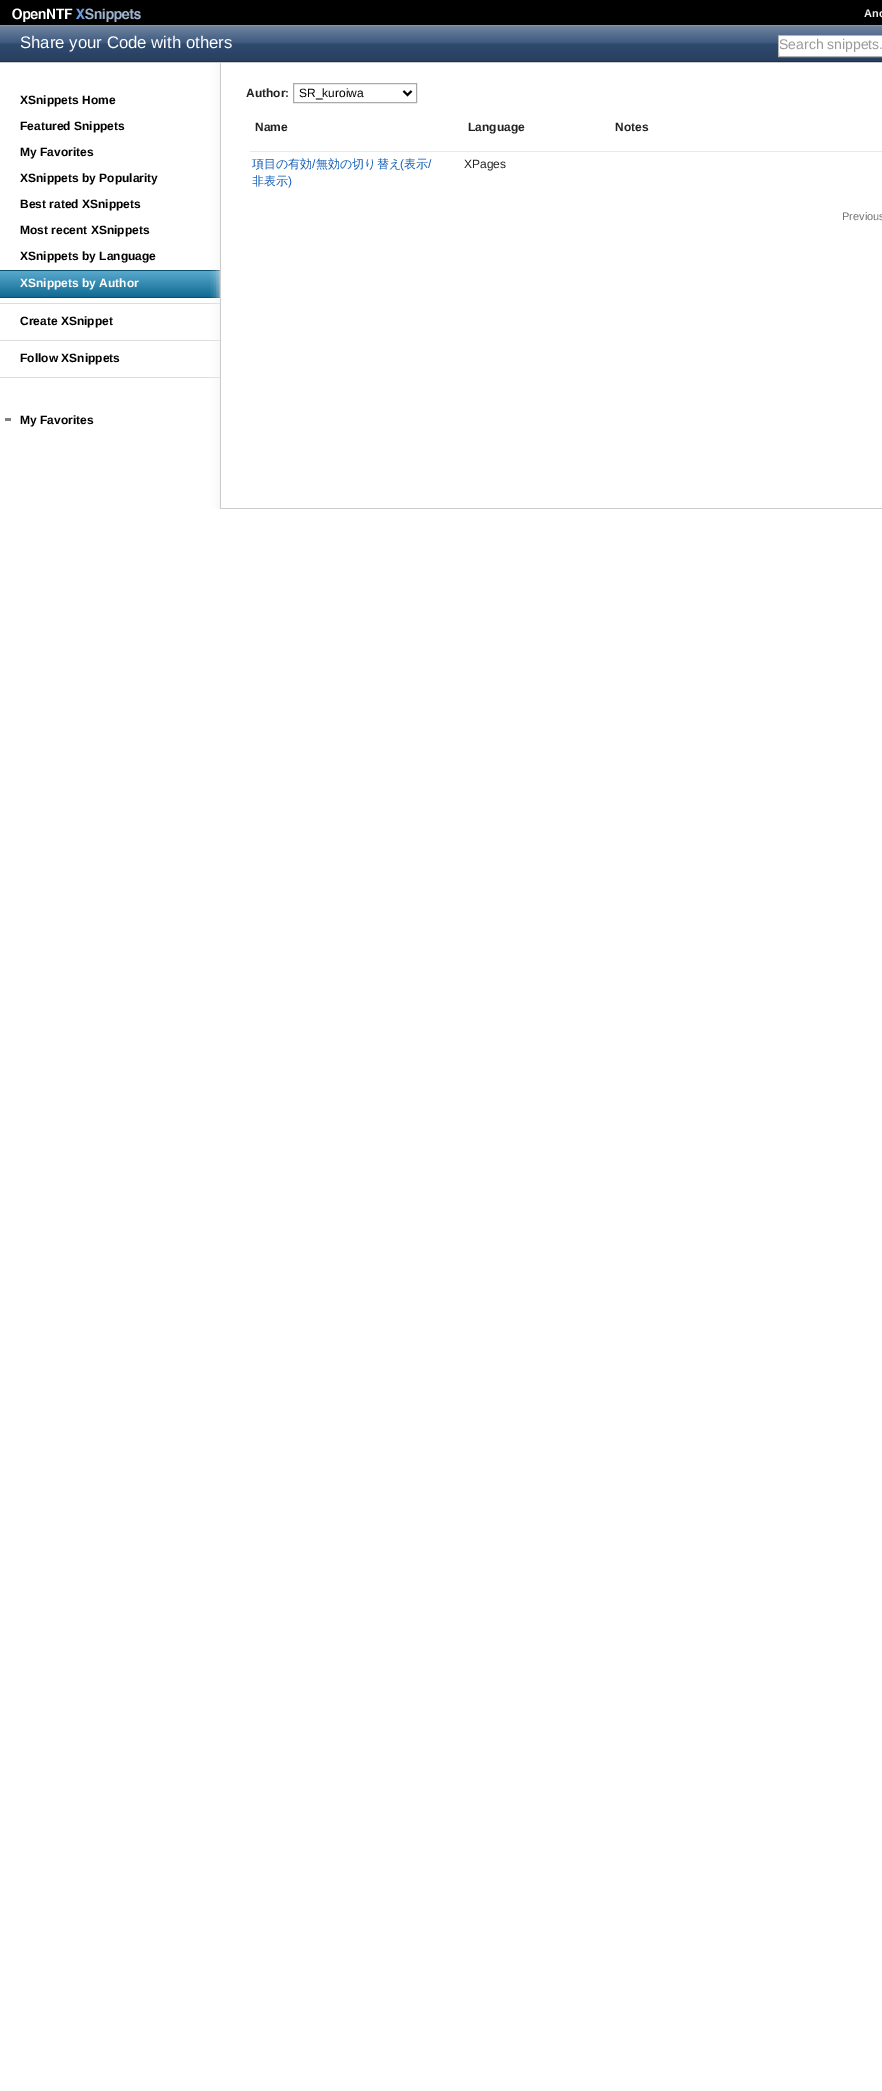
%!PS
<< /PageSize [882 2091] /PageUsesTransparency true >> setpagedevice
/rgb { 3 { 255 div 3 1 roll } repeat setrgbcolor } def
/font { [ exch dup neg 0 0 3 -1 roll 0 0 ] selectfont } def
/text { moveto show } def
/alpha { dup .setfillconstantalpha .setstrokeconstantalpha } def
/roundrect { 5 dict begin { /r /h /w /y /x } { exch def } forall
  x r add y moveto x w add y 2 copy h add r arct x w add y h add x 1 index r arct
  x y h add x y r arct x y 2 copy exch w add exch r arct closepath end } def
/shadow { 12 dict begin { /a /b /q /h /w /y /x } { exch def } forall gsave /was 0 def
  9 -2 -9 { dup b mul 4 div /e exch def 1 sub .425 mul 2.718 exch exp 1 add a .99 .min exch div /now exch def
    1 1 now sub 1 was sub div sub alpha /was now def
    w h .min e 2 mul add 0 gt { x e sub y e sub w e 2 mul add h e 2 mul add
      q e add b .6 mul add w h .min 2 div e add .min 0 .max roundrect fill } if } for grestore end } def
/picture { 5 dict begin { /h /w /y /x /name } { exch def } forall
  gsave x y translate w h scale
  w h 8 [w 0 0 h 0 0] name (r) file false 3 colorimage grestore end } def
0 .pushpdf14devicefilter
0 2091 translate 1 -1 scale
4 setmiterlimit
255 255 255 rgb
0 0 882 2091 rectfill
0 0 0 rgb
0 0 882 25 rectfill
(img_01.rgb) 12 8 129 14 picture
204 204 204 rgb
0 62 882 1 rectfill
gsave 0 271 moveto 220 0 rlineto 0 26 rlineto -220 0 rlineto closepath clip newpath
<< /ShadingType 2 /ColorSpace /DeviceRGB /Coords [110 271 110 297] /Extend [true true] /Function << /FunctionType 2 /Domain [0 1] /C0 [0.353 0.663 0.804] /C1 [0.059 0.416 0.576] /N 1 >> >> shfill grestore
11 79 110 rgb
0 270 220 1 rectfill
0 297 220 1 rectfill
221 221 221 rgb
0 303 220 1 rectfill
0 340 220 1 rectfill
0 377 220 1 rectfill
gsave
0 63 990 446 rectclip
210 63 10 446 rectclip
238 238 238 rgb
220 65 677 446 0 5 1 shadow
grestore
gsave 0 25 moveto 882 0 rlineto 0 36 rlineto -882 0 rlineto closepath clip newpath
<< /ShadingType 2 /ColorSpace /DeviceRGB /Coords [0 25 0 62] /Extend [true true] /Function << /FunctionType 3 /Domain [0 1] /Functions [<< /FunctionType 2 /Domain [0 1] /C0 [0.518 0.584 0.678] /C1 [0.518 0.584 0.678] /N 1 >> << /FunctionType 2 /Domain [0 1] /C0 [0.435 0.518 0.624] /C1 [0.235 0.345 0.49] /N 1 >> << /FunctionType 2 /Domain [0 1] /C0 [0.188 0.294 0.439] /C1 [0.157 0.247 0.369] /N 1 >>] /Bounds [0.03 0.5] /Encode [0 1 0 1 0 1] >> >> shfill grestore
30 47 71 rgb
0 61 882 1 rectfill
255 255 255 rgb
779 52 103 4 rectfill
179 179 179 rgb
778.5 35.5 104 21 rectstroke
255 255 255 rgb
779 36 103 16 rectfill
128 128 128 rgb
5 418 6 3 rectfill
204 204 204 rgb
220 508 662 1 rectfill
220 63 1 446 rectfill
170 170 170 rgb
293.5 83.5 123 19 rectstroke
0 0 0 rgb
2 setlinewidth
403.5 91 moveto 4 4 rlineto 4 -4 rlineto stroke
232 232 233 rgb
250 151 632 1 rectfill
/LiberationSans-Bold 11 font
238 238 238 rgb
(Ano) 864 17 text
/LiberationSans-Regular 16.75 font
255 255 255 rgb
(Share your Code with others) 20 48 text
/LiberationSans-Regular 14 font
153 153 153 rgb
(Search snippets.) 779 49 text
/LiberationSans-Bold 12 font
0 0 0 rgb
(XSnippets Home) 20 104 text
(Featured Snippets) 20 130 text
(My Favorites) 20 156 text
(XSnippets by Popularity) 20 182 text
(Best rated XSnippets) 20 208 text
(Most recent XSnippets) 20 234 text
(XSnippets by Language) 20 260 text
255 255 255 rgb
(XSnippets by Author) 20 287 text
0 0 0 rgb
(Create XSnippet) 20 325 text
(Follow XSnippets) 20 362 text
(My Favorites) 20 424 text
34 34 34 rgb
(Author:) 246 97 text
/LiberationSans-Regular 12 font
0 0 0 rgb
(SR_kuroiwa) 299 97 text
/LiberationSans-Bold 12 font
34 34 34 rgb
(Name) 255 131 text
(Language) 468 131 text
(Notes) 615 131 text
/WenQuanYiZenHei-Medium 12 font
16 92 182 rgb
(項目の有効) 252 168 text
/LiberationSans-Regular 12 font
(/) 312 168 text
/WenQuanYiZenHei-Medium 12 font
(無効の切り替え) 316 168 text
/LiberationSans-Regular 12 font
(\() 400 168 text
/WenQuanYiZenHei-Medium 12 font
(表示) 404 168 text
/LiberationSans-Regular 12 font
(/) 428 168 text
/WenQuanYiZenHei-Medium 12 font
(非表示) 252 185 text
/LiberationSans-Regular 12 font
(\)) 288 185 text
34 34 34 rgb
(XPages) 464 168 text
/LiberationSans-Regular 11 font
112 112 112 rgb
(Previous) 842 220 text
.poppdf14devicefilter showpage
